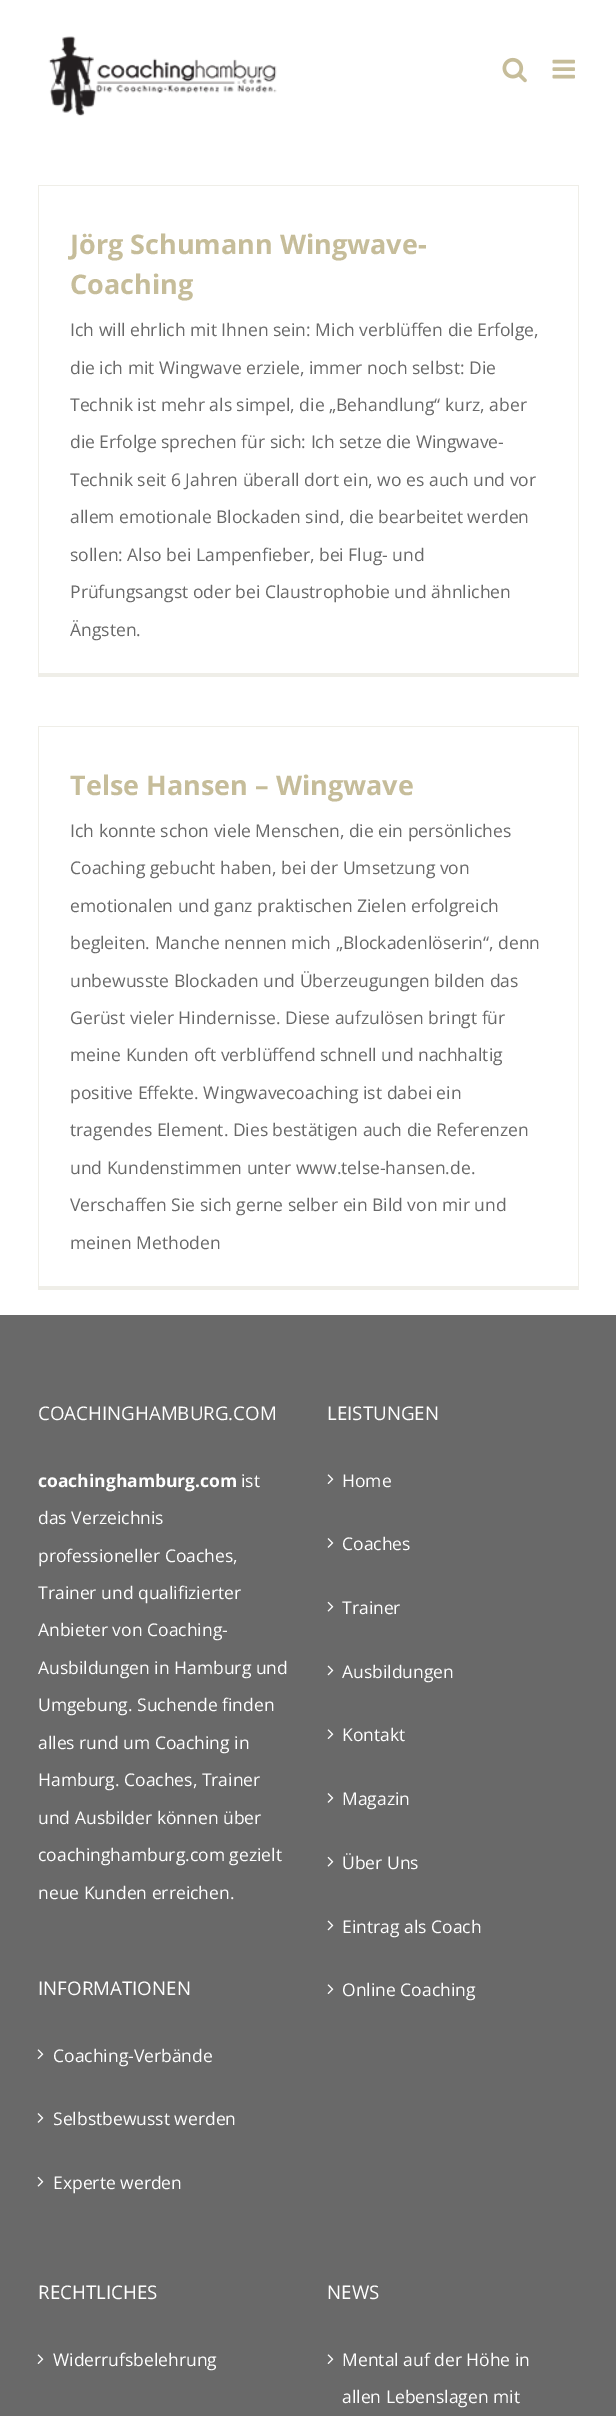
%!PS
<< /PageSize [616 2416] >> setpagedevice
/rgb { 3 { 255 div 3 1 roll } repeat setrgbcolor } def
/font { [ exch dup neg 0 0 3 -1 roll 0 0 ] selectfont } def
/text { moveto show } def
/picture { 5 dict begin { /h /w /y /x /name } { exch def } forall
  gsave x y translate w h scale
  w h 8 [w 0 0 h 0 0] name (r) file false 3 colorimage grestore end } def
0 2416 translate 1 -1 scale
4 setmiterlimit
255 255 255 rgb
0 0 616 2416 rectfill
(img_01.rgb) 48 36 229 80 picture
(img_02.rgb) 502 57 25 26 picture
(img_03.rgb) 552 59 23 20 picture
239 238 232 rgb
38 185 541 1 rectfill
578 185 1 491 rectfill
38 673 541 4 rectfill
38 185 1 491 rectfill
38 726 541 1 rectfill
578 726 1 564 rectfill
38 1286 541 4 rectfill
38 726 1 564 rectfill
105 105 105 rgb
0 1315 616 1101 rectfill
(img_04.rgb) 37 2049 7 10 picture
(img_05.rgb) 37 2113 7 10 picture
(img_06.rgb) 37 2176 7 11 picture
(img_04.rgb) 327 1474 7 10 picture
(img_05.rgb) 327 1538 7 10 picture
(img_06.rgb) 327 1601 7 11 picture
(img_07.rgb) 327 1665 7 11 picture
(img_04.rgb) 327 1729 7 10 picture
(img_05.rgb) 327 1793 7 10 picture
(img_06.rgb) 327 1856 7 11 picture
(img_07.rgb) 327 1920 7 11 picture
(img_04.rgb) 327 1984 7 10 picture
(img_04.rgb) 37 2354 7 10 picture
(img_04.rgb) 327 2354 7 10 picture
/OpenSans-Bold 27 font
198 189 154 rgb
(Jörg Schumann Wingwave-) 70 254 text
(Coaching) 70 294 text
/OpenSans-Regular 17.5 font
105 105 105 rgb
(Ich will ehrlich mit Ihnen sein: Mich verblüffen die Erfolge,) 70 336 text
(die ich mit Wingwave erziele, immer noch selbst: Die) 70 374 text
(Technik ist mehr als simpel, die „Behandlung“ kurz, aber) 70 411 text
(die Erfolge sprechen für sich: Ich setze die Wingwave-) 70 448 text
(Technik seit 6 Jahren überall dort ein, wo es auch und vor) 70 486 text
(allem emotionale Blockaden sind, die bearbeitet werden) 70 523 text
(sollen: Also bei Lampenfieber, bei Flug- und) 70 561 text
(Prüfungsangst oder bei Claustrophobie und ähnlichen) 70 598 text
(Ängsten.) 70 636 text
/OpenSans-Bold 27 font
198 189 154 rgb
(Telse Hansen – Wingwave) 70 795 text
/OpenSans-Regular 17.5 font
105 105 105 rgb
(Ich konnte schon viele Menschen, die ein persönliches) 70 837 text
(Coaching gebucht haben, bei der Umsetzung von) 70 874 text
(emotionalen und ganz praktischen Zielen erfolgreich) 70 912 text
(begleiten. Manche nennen mich „Blockadenlöserin“, denn) 70 949 text
(unbewusste Blockaden und Überzeugungen bilden das) 70 987 text
(Gerüst vieler Hindernisse. Diese aufzulösen bringt für) 70 1024 text
(meine Kunden oft verblüffend schnell und nachhaltig) 70 1061 text
(positive Effekte. Wingwavecoaching ist dabei ein) 70 1099 text
(tragendes Element. Dies bestätigen auch die Referenzen) 70 1136 text
(und Kundenstimmen unter www.telse-hansen.de.) 70 1174 text
(Verschaffen Sie sich gerne selber ein Bild von mir und) 70 1211 text
(meinen Methoden) 70 1249 text
/OpenSans-Regular 18.75 font
255 255 255 rgb
(COACHINGHAMBURG.COM) 38 1420 text
/OpenSans-Bold 17.5 font
(coachinghamburg.com) 38 1487 text
/OpenSans-Regular 17.5 font
(ist) 241 1487 text
(das Verzeichnis) 38 1524 text
(professioneller Coaches,) 38 1562 text
(Trainer und qualifizierter) 38 1599 text
(Anbieter von Coaching-) 38 1636 text
(Ausbildungen in Hamburg und) 38 1674 text
(Umgebung. Suchende finden) 38 1711 text
(alles rund um Coaching in) 38 1749 text
(Hamburg. Coaches, Trainer) 38 1786 text
(und Ausbilder können über) 38 1824 text
(coachinghamburg.com gezielt) 38 1861 text
(neue Kunden erreichen.) 38 1899 text
/OpenSans-Regular 18.75 font
(INFORMATIONEN) 38 1995 text
/OpenSans-Regular 17.5 font
(Coaching-Verbände) 53 2062 text
(Selbstbewusst werden) 53 2125 text
(Experte werden) 53 2189 text
/OpenSans-Regular 18.75 font
(LEISTUNGEN) 327 1420 text
/OpenSans-Regular 17.5 font
(Home) 342 1487 text
(Coaches) 342 1550 text
(Trainer) 342 1614 text
(Ausbildungen) 342 1678 text
(Kontakt) 342 1741 text
(Magazin) 342 1805 text
(Über Uns) 342 1869 text
(Eintrag als Coach) 342 1933 text
(Online Coaching) 342 1996 text
/OpenSans-Regular 18.75 font
(RECHTLICHES) 38 2299 text
/OpenSans-Regular 17.5 font
(Widerrufsbelehrung) 53 2366 text
/OpenSans-Regular 18.75 font
(NEWS) 327 2299 text
/OpenSans-Regular 17.5 font
(Mental auf der Höhe in) 342 2366 text
(allen Lebenslagen mit) 342 2403 text
showpage
